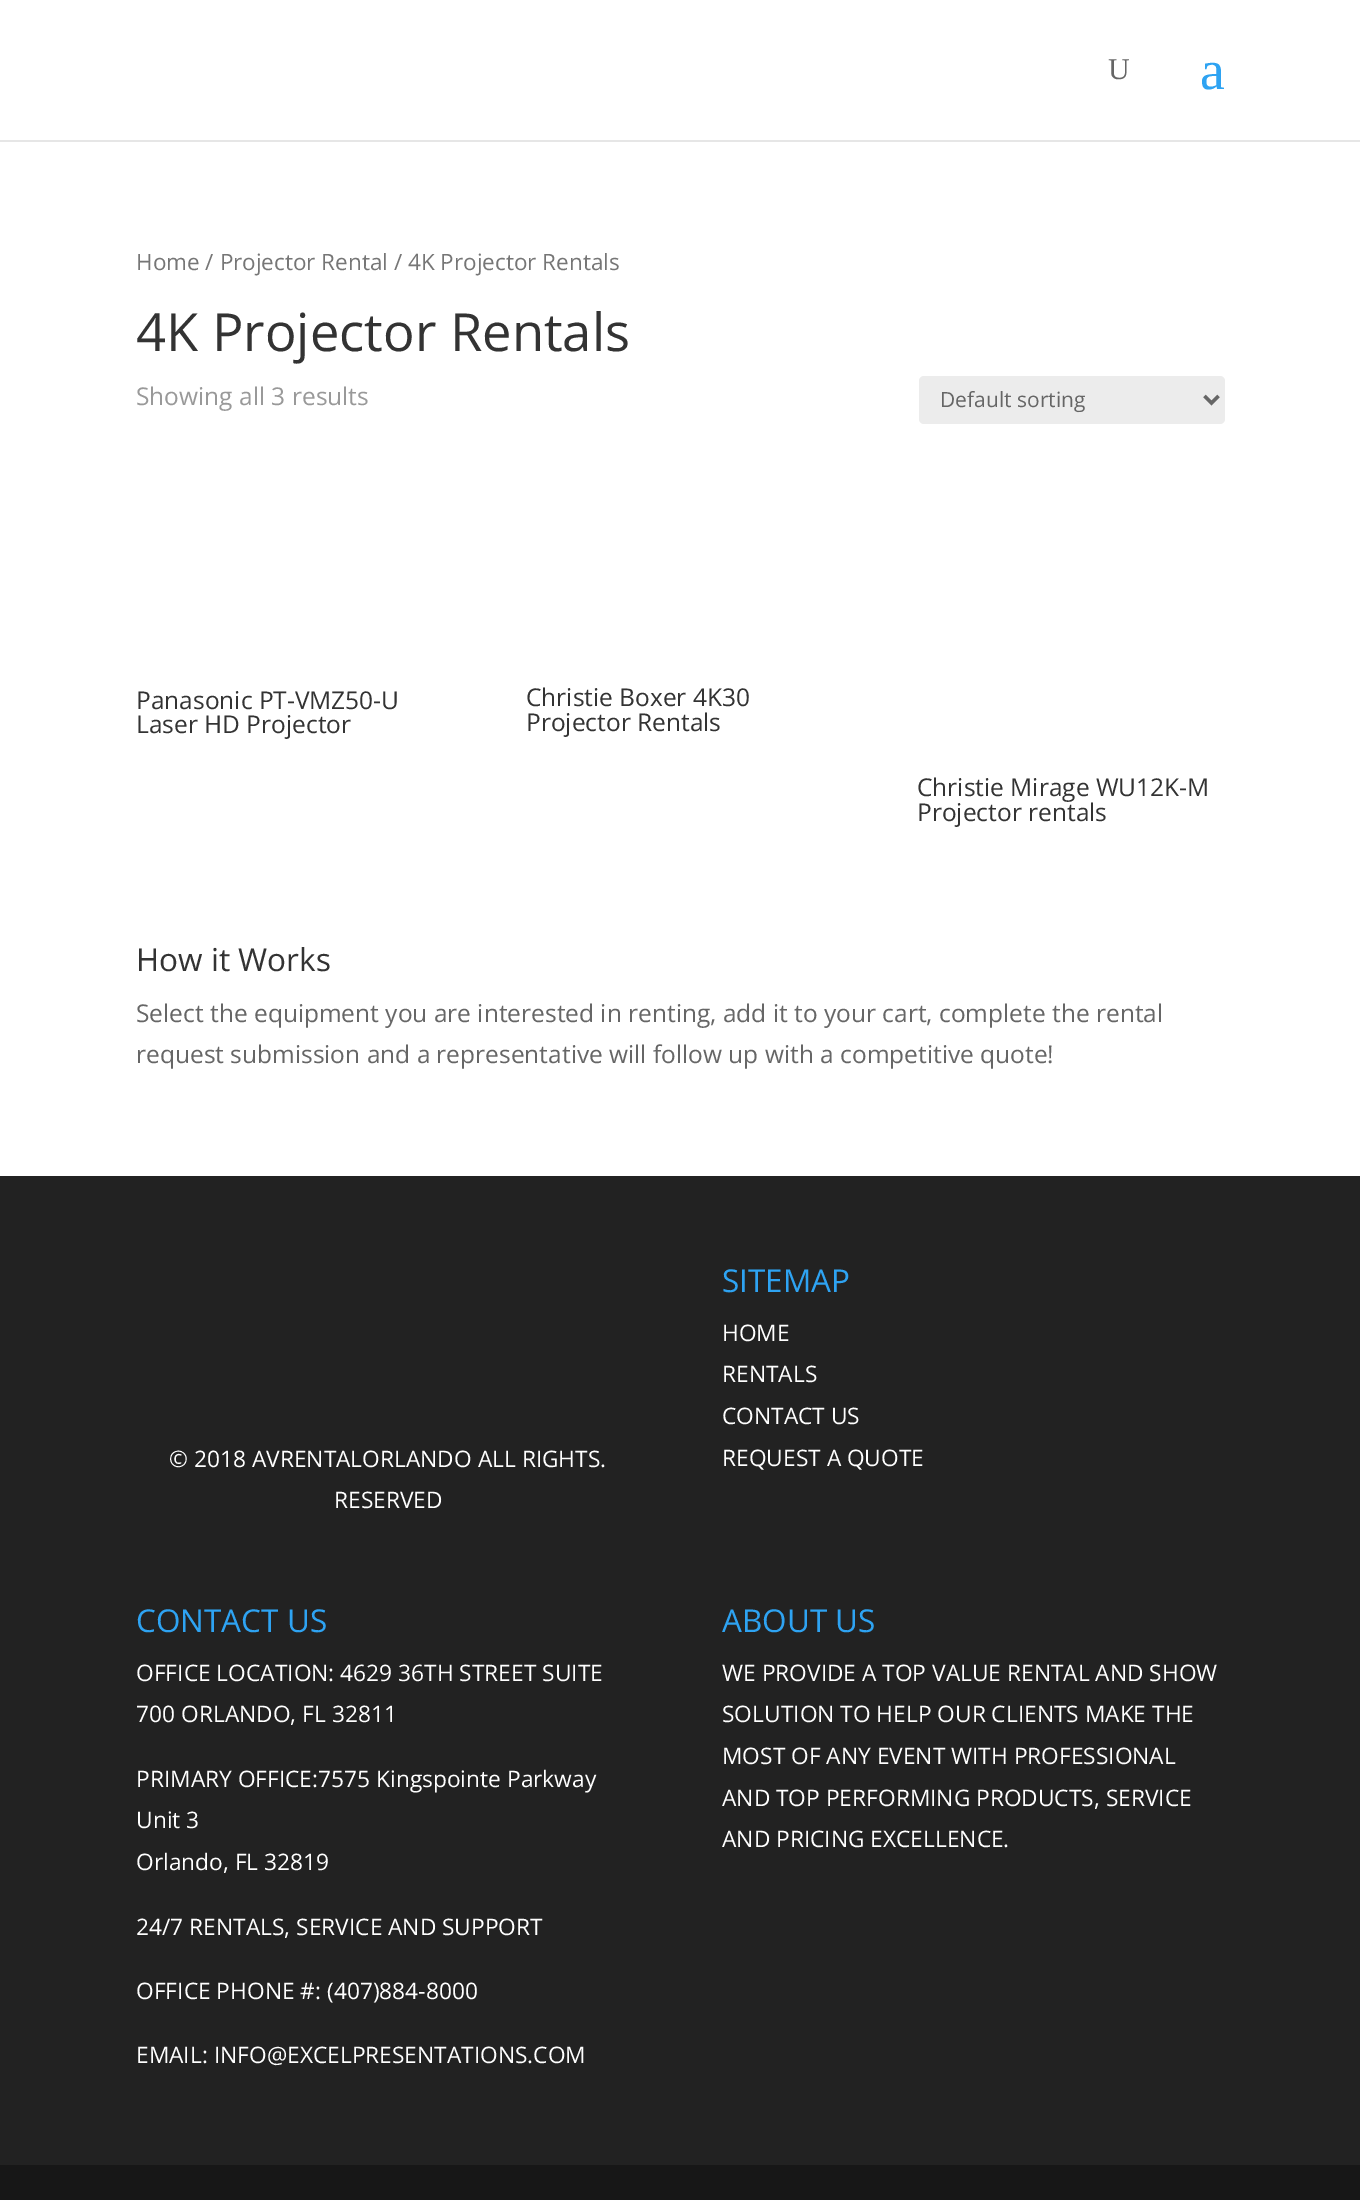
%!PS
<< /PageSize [1360 2201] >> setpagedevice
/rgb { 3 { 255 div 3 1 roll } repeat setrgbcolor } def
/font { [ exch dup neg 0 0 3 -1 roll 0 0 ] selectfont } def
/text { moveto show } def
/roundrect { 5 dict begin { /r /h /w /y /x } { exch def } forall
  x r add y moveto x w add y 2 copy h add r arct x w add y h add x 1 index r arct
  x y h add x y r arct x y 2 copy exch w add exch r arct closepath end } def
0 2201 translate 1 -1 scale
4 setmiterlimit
255 255 255 rgb
0 0 1360 2201 rectfill
230 230 230 rgb
0 140 moveto 0 2 rlineto 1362 0 rlineto 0 -140 rlineto 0 138 rlineto closepath fill
236 236 236 rgb
919 376 306 48 5 roundrect fill
102 102 102 rgb
3.5 setlinewidth
1204.5 396 moveto 7 7 rlineto 7 -7 rlineto stroke
34 34 34 rgb
0 1176 1360 989 rectfill
23 23 23 rgb
0 2165 1360 35 rectfill
/LiberationSerif-Regular 30 font
102 102 102 rgb
(U) 1108 79 text
/LiberationSerif-Regular 56 font
46 163 242 rgb
(a) 1200 89 text
/OpenSans-Regular 22.5 font
118 118 118 rgb
(Home / Projector Rental / 4K Projector Rentals) 136 270 text
/OpenSans-Regular 52.5 font
51 51 51 rgb
(4K Projector Rentals) 136 351 text
/OpenSans-Regular 24.5 font
153 153 153 rgb
(Showing all 3 results) 136 405 text
/OpenSans-Regular 21 font
102 102 102 rgb
(Default sorting) 940 407 text
/OpenSans-Regular 24.5 font
51 51 51 rgb
(Panasonic PT-VMZ50-U) 136 709 text
(Laser HD Projector) 136 733 text
(Christie Boxer 4K30) 526 706 text
(Projector Rentals) 526 731 text
(Christie Mirage WU12K-M) 917 796 text
(Projector rentals) 917 821 text
/OpenSans-Regular 31.5 font
(How it Works) 136 971 text
/OpenSans-Regular 24.5 font
102 102 102 rgb
(Select the equipment you are interested in renting, add it to your cart, complete the rental) 136 1022 text
(request submission and a representative will follow up with a competitive quote!) 136 1063 text
/OpenSans-Regular 31.5 font
46 163 242 rgb
(SITEMAP) 722 1292 text
/OpenSans-Regular 22.75 font
255 255 255 rgb
(HOME) 722 1341 text
(RENTALS) 722 1382 text
(CONTACT US) 722 1424 text
(REQUEST A QUOTE) 722 1466 text
(© 2018 AVRENTALORLANDO ALL RIGHTS.) 169 1467 text
(RESERVED) 334 1508 text
/OpenSans-Regular 31.5 font
46 163 242 rgb
(CONTACT US) 136 1632 text
/OpenSans-Regular 22.75 font
255 255 255 rgb
(OFFICE LOCATION: 4629 36TH STREET SUITE) 136 1681 text
(700 ORLANDO, FL 32811) 136 1722 text
(PRIMARY OFFICE:7575 Kingspointe Parkway) 136 1787 text
(Unit 3) 136 1828 text
(Orlando, FL 32819) 136 1870 text
(24/7 RENTALS, SERVICE AND SUPPORT) 136 1935 text
(OFFICE PHONE #: \(407\)884-8000) 136 1999 text
(EMAIL: INFO@EXCELPRESENTATIONS.COM) 136 2063 text
/OpenSans-Regular 31.5 font
46 163 242 rgb
(ABOUT US) 722 1632 text
/OpenSans-Regular 22.75 font
255 255 255 rgb
(WE PROVIDE A TOP VALUE RENTAL AND SHOW) 722 1681 text
(SOLUTION TO HELP OUR CLIENTS MAKE THE) 722 1722 text
(MOST OF ANY EVENT WITH PROFESSIONAL) 722 1764 text
(AND TOP PERFORMING PRODUCTS, SERVICE) 722 1806 text
(AND PRICING EXCELLENCE.) 722 1847 text
showpage
